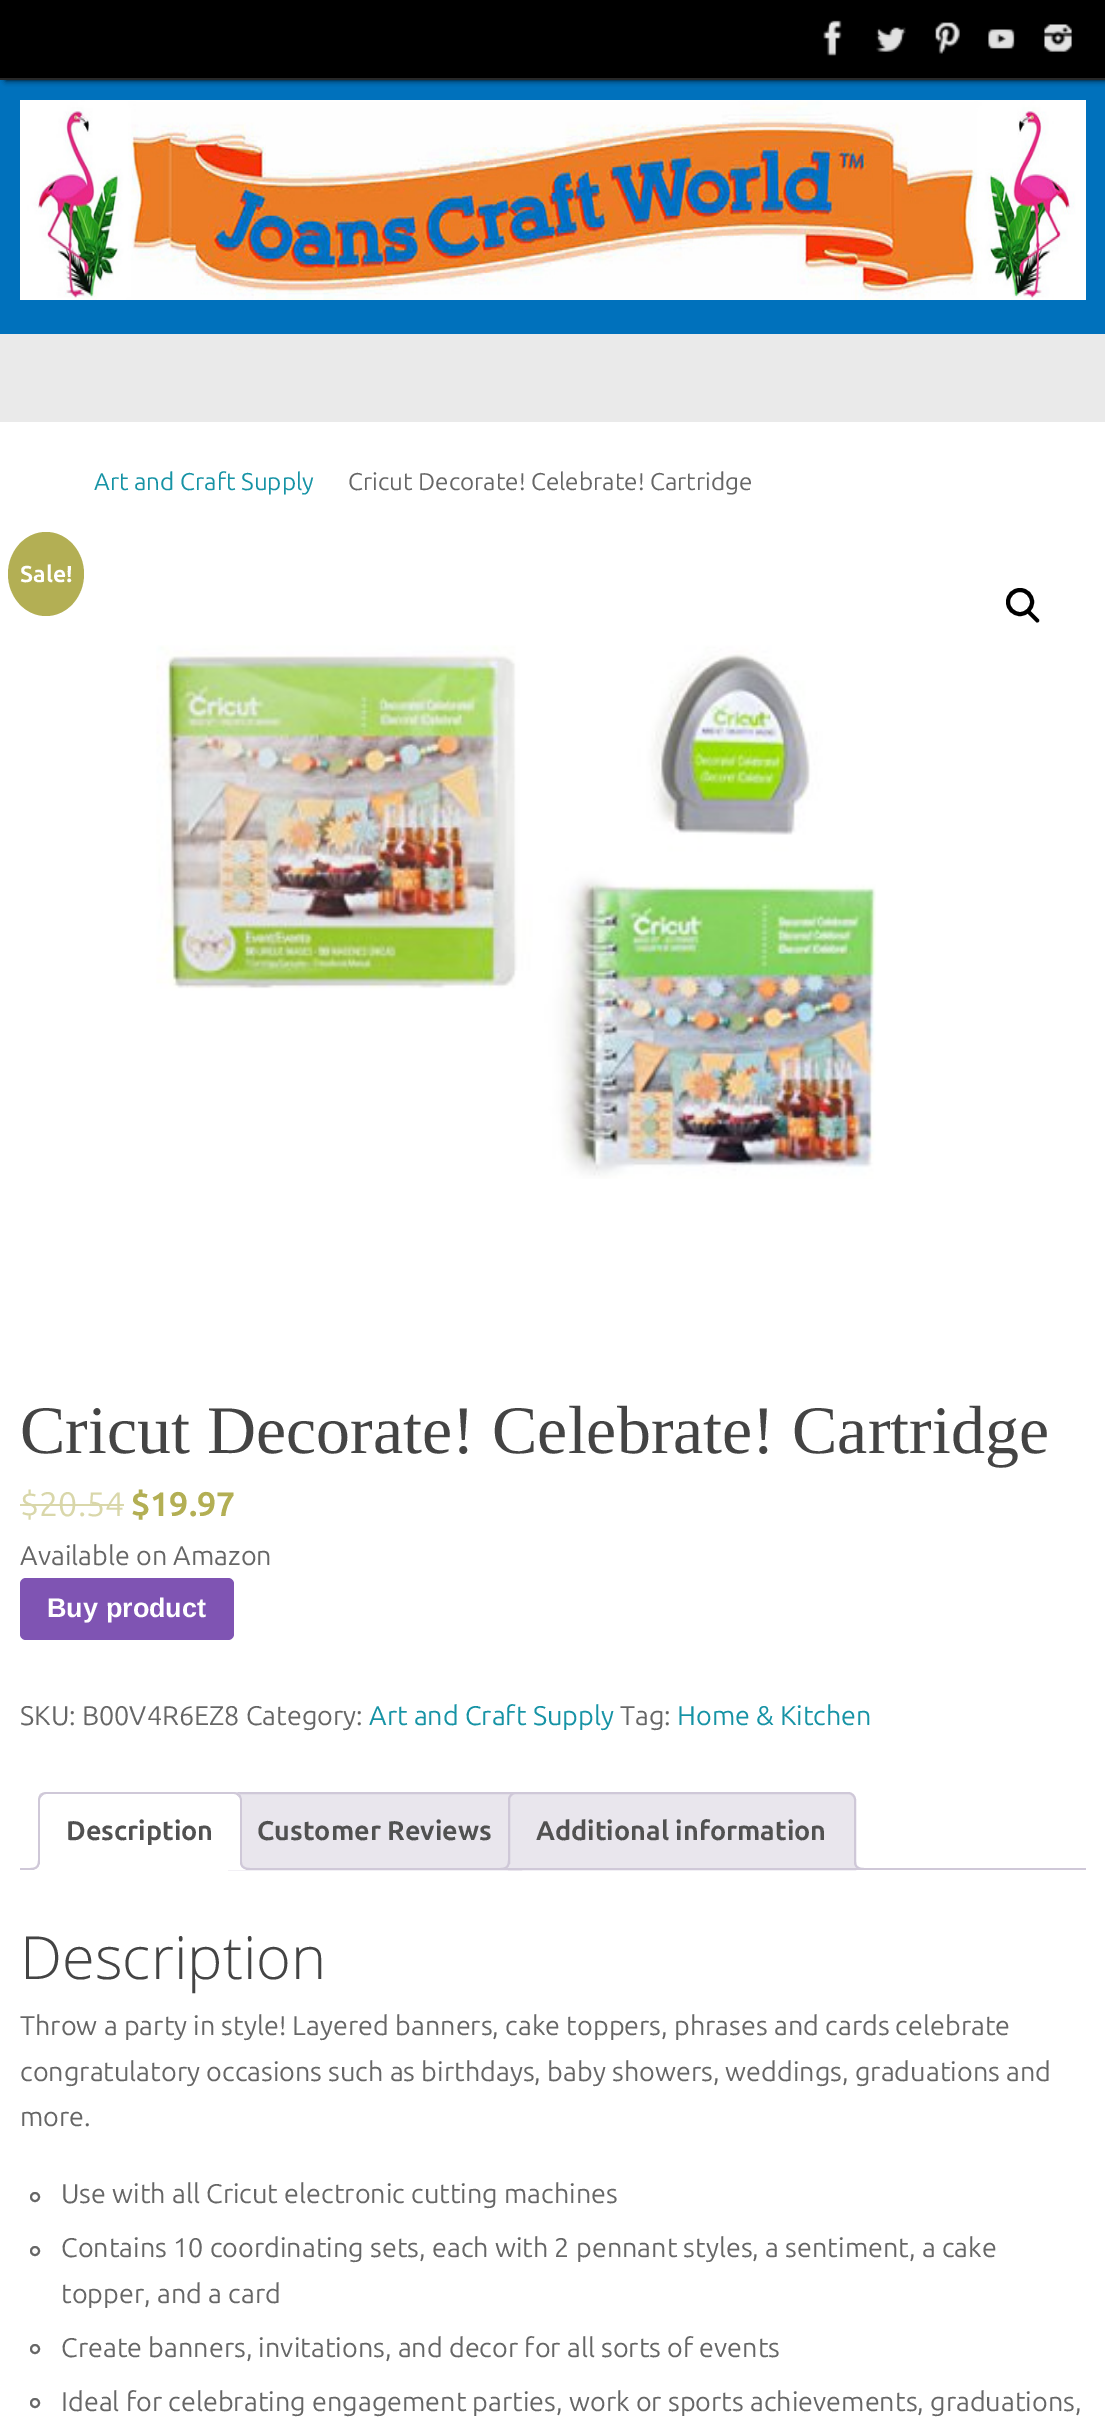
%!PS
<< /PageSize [1105 2434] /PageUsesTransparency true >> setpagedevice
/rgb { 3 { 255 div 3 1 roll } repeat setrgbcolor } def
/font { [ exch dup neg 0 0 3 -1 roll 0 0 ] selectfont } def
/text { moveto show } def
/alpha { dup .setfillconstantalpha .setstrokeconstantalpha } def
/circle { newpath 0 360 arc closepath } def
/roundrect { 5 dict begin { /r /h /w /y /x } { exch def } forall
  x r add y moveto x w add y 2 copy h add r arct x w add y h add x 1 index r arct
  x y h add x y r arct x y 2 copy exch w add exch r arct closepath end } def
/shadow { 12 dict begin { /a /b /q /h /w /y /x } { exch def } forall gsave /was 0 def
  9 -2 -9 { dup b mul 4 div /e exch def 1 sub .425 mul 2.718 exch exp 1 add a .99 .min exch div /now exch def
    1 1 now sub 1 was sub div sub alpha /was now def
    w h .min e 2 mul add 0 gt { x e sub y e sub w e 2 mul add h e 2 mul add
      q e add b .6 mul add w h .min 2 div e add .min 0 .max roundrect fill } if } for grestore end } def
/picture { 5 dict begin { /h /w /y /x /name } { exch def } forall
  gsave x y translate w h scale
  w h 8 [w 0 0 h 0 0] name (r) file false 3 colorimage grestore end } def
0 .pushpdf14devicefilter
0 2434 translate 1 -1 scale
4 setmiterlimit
0 113 188 rgb
0 0 1105 2434 rectfill
0 0 0 rgb
6 0 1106 80 0 3 1 shadow
0 0 1105 78 rectfill
40 40 40 rgb
0 78 1105 2 rectfill
(img_01.rgb) 823 20 19 36 picture
(img_02.rgb) 876 27 30 25 picture
(img_03.rgb) 935 22 25 32 picture
(img_04.rgb) 988 29 27 20 picture
(img_05.rgb) 1044 24 28 28 picture
(img_06.rgb) 20 100 1066 200 picture
234 234 234 rgb
0 334 1105 88 rectfill
255 255 255 rgb
0 422 1105 2012 rectfill
179 175 84 rgb
46 532 moveto 21 0 38 19 38 42 rcurveto 0 23 -17 42 -38 42 rcurveto -21 0 -38 -19 -38 -42 rcurveto 0 -23 17 -42 38 -42 rcurveto closepath fill
0 0 0 rgb
4 setlinewidth
1020 602 12 circle stroke
1027.5 610.5 moveto 0.5 -1 2 -1 2.5 0 rcurveto 8.5 8.5 rlineto 1 1 1 2 0 3 rcurveto -0.5 0.5 -2 0.5 -2.5 0 rcurveto -8.5 -8.5 rlineto -1 -1 -1 -2 0 -3 rcurveto closepath fill
(img_07.rgb) 156 645 720 534 picture
217 215 170 rgb
20 1504 104 2 rectfill
127 84 179 rgb
20 1578 214 62 6 roundrect fill
233 230 237 rgb
236 1793 moveto 278 0 rlineto 4 0 7 3 7 7 rcurveto 0 69 rlineto -292 0 rlineto 0 -69 rlineto 0 -4 3 -7 7 -7 rcurveto closepath gsave fill grestore
207 200 216 rgb
2 setlinewidth
stroke
233 230 237 rgb
516 1793 moveto 332 0 rlineto 4 0 7 3 7 7 rcurveto 0 69 rlineto -346 0 rlineto 0 -69 rlineto 0 -4 3 -7 7 -7 rcurveto closepath gsave fill grestore
207 200 216 rgb
stroke
gsave
20 1792 1066 78 rectclip
233 230 237 rgb
504 1869.5 moveto 0 4.5 rlineto 7 0 10 -3 10 -10 rcurveto -4.5 0 rlineto -0.5 3 -2.5 5 -5.5 5.5 rcurveto closepath fill
grestore
500 1860 moveto 10 0 rlineto 0 7 -3 10 -10 10 rcurveto closepath 500 1860 moveto 8 0 rlineto 0 6 -2 8 -8 8 rcurveto closepath eofill
gsave
20 1792 1066 78 rectclip
233 230 237 rgb
850 1864 moveto 0 7 3 10 10 10 rcurveto 0 -4.5 rlineto -3 -0.5 -5 -2.5 -5.5 -5.5 rcurveto closepath fill
grestore
854 1860 moveto 10 0 rlineto 0 10 rlineto -5 0 -10 -2 -10 -8 rcurveto closepath 856 1860 moveto 8 0 rlineto 0 8 rlineto -4 0 -8 -1 -8 -6 rcurveto closepath eofill
20 1868 1066 2 rectfill
255 255 255 rgb
46 1792 moveto 188 0 rlineto 4.5 0 8 3.5 8 8 rcurveto 0 70 rlineto -204 0 rlineto 0 -70 rlineto 0 -4.5 3.5 -8 8 -8 rcurveto closepath fill
207 200 216 rgb
46 1792 moveto -2 0 -4 1 -6 2 rcurveto 2 2 rlineto 1 -1 2 -2 4 -2 rcurveto 188 0 rlineto 2 0 3 1 4 2 rcurveto 2 -2 rlineto -2 -1 -4 -2 -6 -2 rcurveto closepath fill
242 1870 moveto 0 -70 rlineto 0 -2 -1 -4 -2 -6 rcurveto -2 2 rlineto 1 1 2 2 2 4 rcurveto 0 68 rlineto closepath fill
255 255 255 rgb
242 1870 moveto -2 -2 rlineto -200 0 rlineto -2 2 rlineto closepath fill
207 200 216 rgb
38 1870 moveto 2 -2 rlineto 0 -68 rlineto 0 -2 1 -3 2 -4 rcurveto -2 -2 rlineto -1 2 -2 4 -2 6 rcurveto closepath fill
gsave
20 1792 1066 78 rectclip
255 255 255 rgb
34 1869.5 moveto 0 4.5 rlineto 7 0 10 -3 10 -10 rcurveto -4.5 0 rlineto -0.5 3 -2.5 5 -5.5 5.5 rcurveto closepath fill
grestore
30 1860 moveto 10 0 rlineto 0 7 -3 10 -10 10 rcurveto closepath 30 1860 moveto 8 0 rlineto 0 6 -2 8 -8 8 rcurveto closepath eofill
gsave
20 1792 1066 78 rectclip
255 255 255 rgb
236 1864 moveto 0 7 3 10 10 10 rcurveto 0 -4.5 rlineto -3 -0.5 -5 -2.5 -5.5 -5.5 rcurveto closepath fill
grestore
240 1860 moveto 10 0 rlineto 0 10 rlineto -5 0 -10 -2 -10 -8 rcurveto closepath 242 1860 moveto 8 0 rlineto 0 8 rlineto -4 0 -8 -1 -8 -6 rcurveto closepath eofill
102 102 102 rgb
35 2197 4 circle stroke
35 2251 4 circle stroke
35 2349 4 circle stroke
35 2403 4 circle stroke
/Ubuntu-Regular 24.25 font
22 147 165 rgb
(Art and Craft Supply) 94 490 text
102 102 102 rgb
(Cricut Decorate! Celebrate! Cartridge) 348 490 text
/Ubuntu-Bold 23 font
255 255 255 rgb
(Sale!) 20 582 text
/LiberationSerif-Regular 68 font
68 68 68 rgb
(Cricut Decorate! Celebrate! Cartridge) 20 1453 text
/Ubuntu-Regular 34 font
217 215 170 rgb
($20.54) 20 1516 text
/Ubuntu-Bold 34 font
179 175 84 rgb
($19.97) 131 1516 text
/Ubuntu-Regular 27 font
102 102 102 rgb
(Available on Amazon) 20 1565 text
/LiberationSans-Bold 27 font
255 255 255 rgb
(Buy product) 47 1617 text
/Ubuntu-Regular 27 font
102 102 102 rgb
(SKU: B00V4R6EZ8 Category:) 20 1725 text
22 147 165 rgb
(Art and Craft Supply) 369 1725 text
102 102 102 rgb
(Tag:) 620 1725 text
22 147 165 rgb
(Home & Kitchen) 677 1725 text
/Ubuntu-Bold 27 font
81 81 81 rgb
(Description) 66 1840 text
(Customer Reviews) 257 1840 text
(Additional information) 536 1840 text
/OpenSans-Light 59.5 font
68 68 68 rgb
(Description) 20 1979 text
/Ubuntu-Regular 27 font
102 102 102 rgb
(Throw a party in style! Layered banners, cake toppers, phrases and cards celebrate) 20 2035 text
(congratulatory occasions such as birthdays, baby showers, weddings, graduations and) 20 2081 text
(more.) 20 2126 text
(Use with all Cricut electronic cutting machines) 61 2203 text
(Contains 10 coordinating sets, each with 2 pennant styles, a sentiment, a cake) 61 2257 text
(topper, and a card) 61 2303 text
(Create banners, invitations, and decor for all sorts of events) 61 2357 text
(Ideal for celebrating engagement parties, work or sports achievements, graduations,) 61 2411 text
.poppdf14devicefilter showpage
